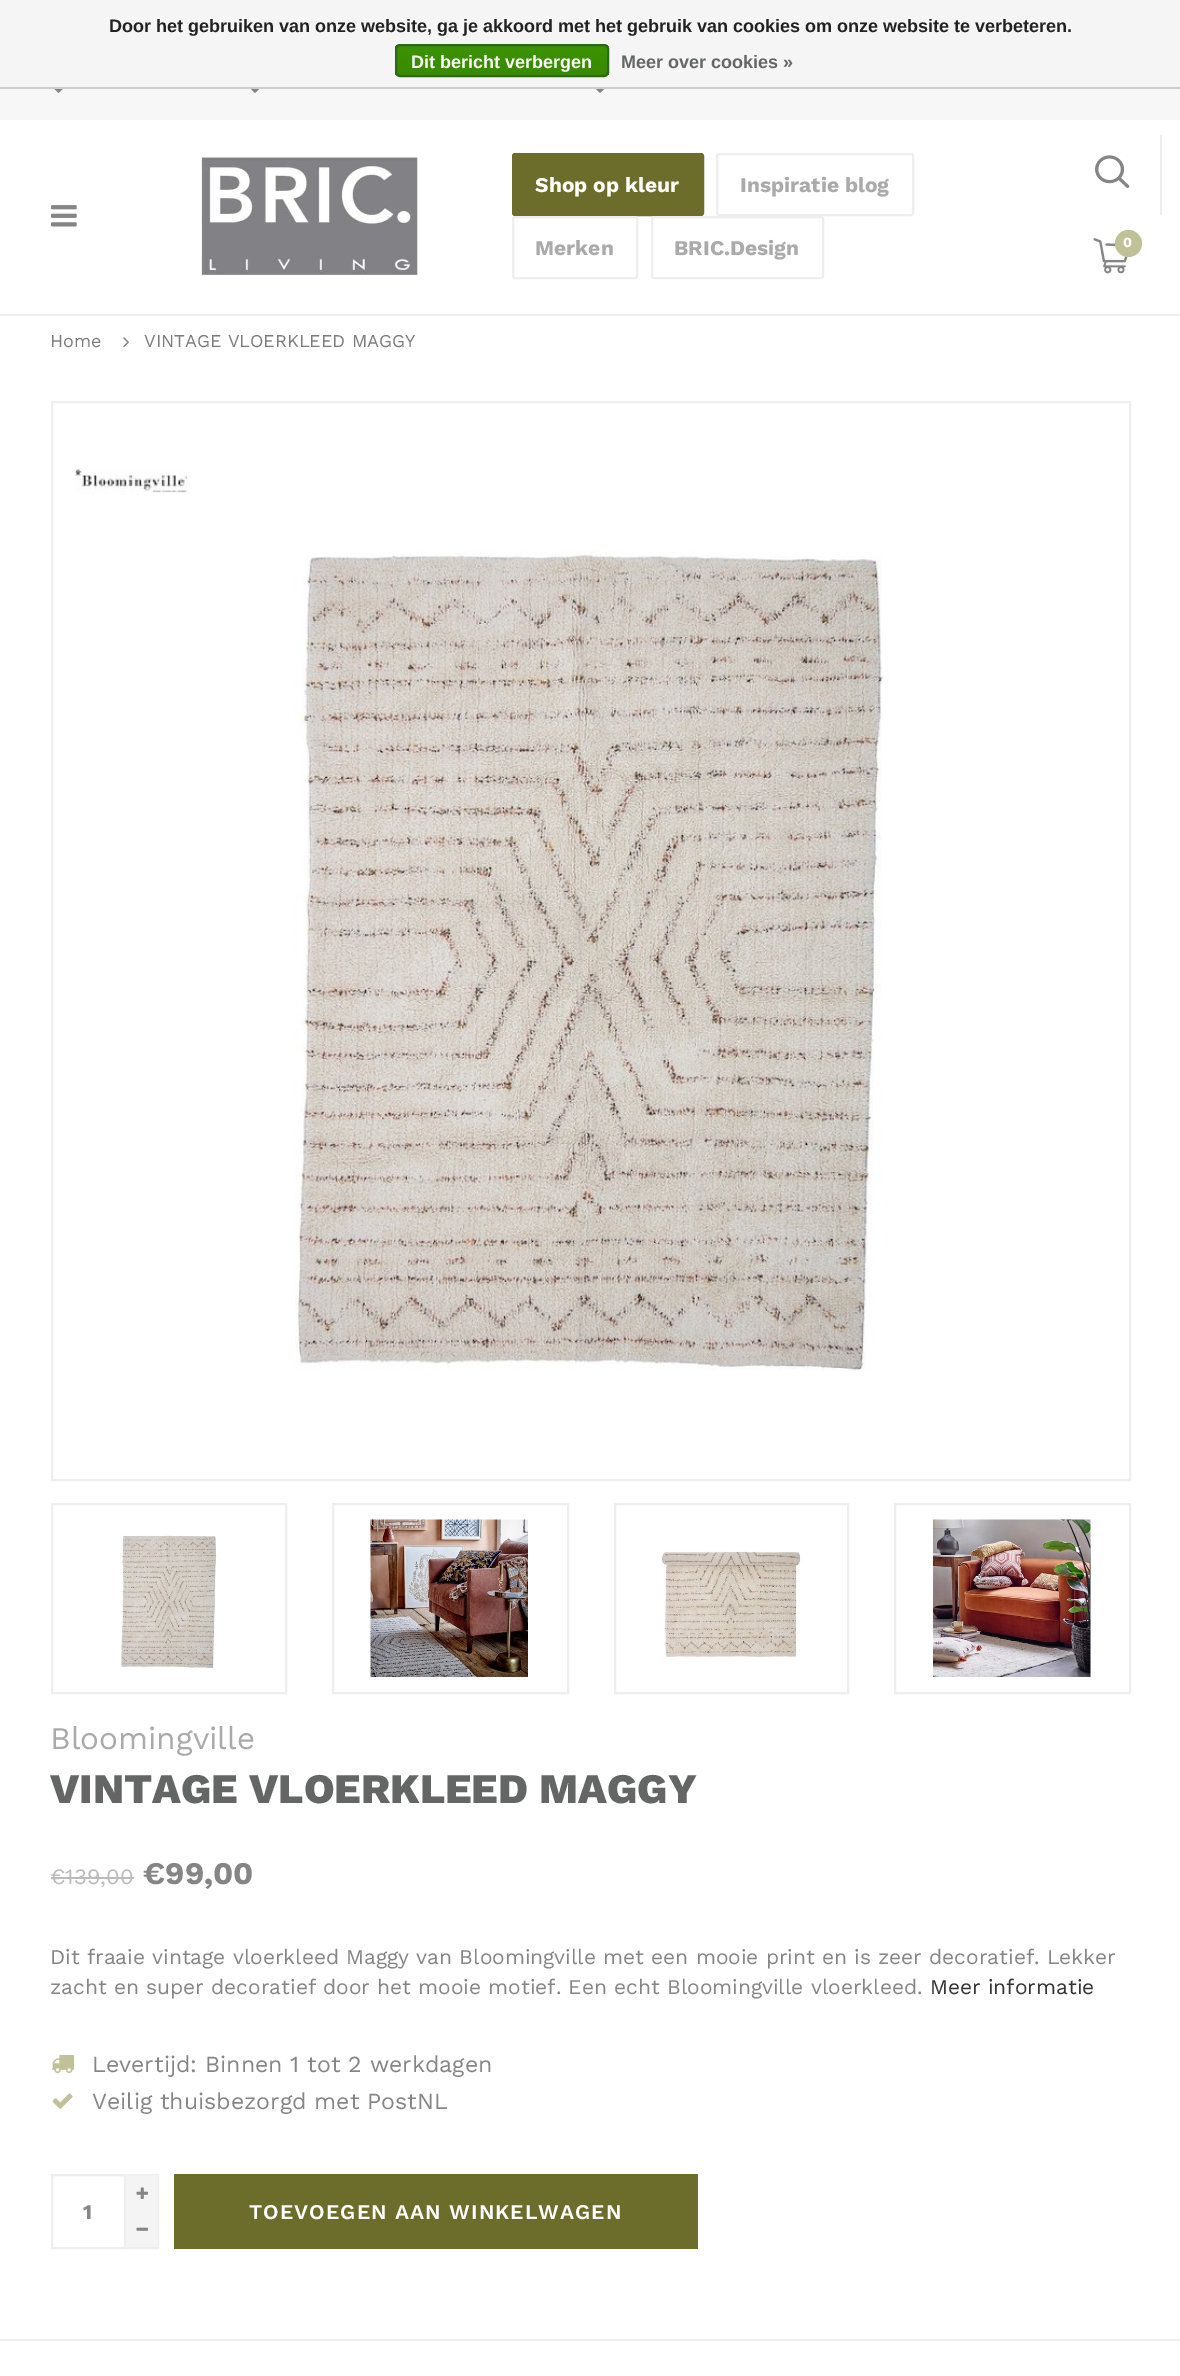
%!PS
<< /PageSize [1180 2376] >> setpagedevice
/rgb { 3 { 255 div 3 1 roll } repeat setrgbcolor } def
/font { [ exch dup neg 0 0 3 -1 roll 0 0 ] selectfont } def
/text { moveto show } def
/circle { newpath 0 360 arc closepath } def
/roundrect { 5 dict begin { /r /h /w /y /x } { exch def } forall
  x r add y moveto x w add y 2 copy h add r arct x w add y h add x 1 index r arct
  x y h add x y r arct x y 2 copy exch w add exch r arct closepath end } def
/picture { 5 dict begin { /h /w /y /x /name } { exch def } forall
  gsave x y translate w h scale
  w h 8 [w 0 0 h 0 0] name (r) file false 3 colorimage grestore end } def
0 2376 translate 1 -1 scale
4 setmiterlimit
255 255 255 rgb
0 0 1180 2376 rectfill
245 245 245 rgb
0 0 1180 87 rectfill
204 204 204 rgb
0 87 1180 2 rectfill
gsave
395 44 214 33 5 roundrect clip newpath
gsave 395 45 moveto 214 0 rlineto 0 30 rlineto -214 0 rlineto closepath clip newpath
<< /ShadingType 2 /ColorSpace /DeviceRGB /Coords [502 45 502 75] /Extend [true true] /Function << /FunctionType 2 /Domain [0 1] /C0 [0.235 0.576 0] /C1 [0.224 0.541 0] /N 1 >> >> shfill grestore
grestore
41 105 29 rgb
2 setlinewidth
396 45 212 31 4 roundrect stroke
247 247 247 rgb
0 89 1180 31 rectfill
(img_01.rgb) 54 89 9 4 picture
(img_02.rgb) 250 89 10 4 picture
(img_02.rgb) 595 89 10 4 picture
238 238 238 rgb
0 314 1180 2 rectfill
(img_03.rgb) 51 205 26 22 picture
(img_04.rgb) 201 156 217 120 picture
109 109 43 rgb
513 154 190 61 2 roundrect gsave fill grestore
stroke
238 238 238 rgb
717 154 196 61 2 roundrect stroke
513 217 124 61 2 roundrect stroke
652 217 171 61 2 roundrect stroke
1160 135 2 80 rectfill
(img_05.rgb) 1095 155 35 33 picture
(img_06.rgb) 1093 238 35 36 picture
193 193 152 rgb
1128.5 243.5 13.5 circle fill
(img_07.rgb) 123 337 6 11 picture
238 238 238 rgb
52 402 1078 1078 rectstroke
(img_08.rgb) 75 469 113 26 picture
(img_09.rgb) 295 551 594 820 picture
52 1504 234 189 rectstroke
(img_10.rgb) 120 1535 97 135 picture
333 1504 235 189 rectstroke
(img_11.rgb) 370 1519 158 158 picture
615 1504 233 189 rectstroke
(img_12.rgb) 661 1550 142 108 picture
895 1504 235 189 rectstroke
(img_13.rgb) 933 1519 158 158 picture
187 187 187 rgb
51 1877 83 2 rectfill
(img_14.rgb) 51 2055 24 19 picture
(img_15.rgb) 52 2093 21 16 picture
238 238 238 rgb
52 2175 73 73 rectstroke
126 2175 32 73 rectstroke
244 244 244 rgb
126 2175 32 72 rectfill
(img_16.rgb) 136 2187 13 12 picture
(img_17.rgb) 136 2227 13 4 picture
109 109 43 rgb
174 2174 524 75 rectfill
238 238 238 rgb
0 2339 1180 2 rectfill
/LiberationSans-Bold 18 font
34 34 34 rgb
(Door het gebruiken van onze website, ga je akkoord met het gebruik van cookies om onze website te verbeteren.) 109 32 text
255 255 255 rgb
(Dit bericht verbergen) 411 68 text
100 101 101 rgb
(Meer over cookies ») 621 68 text
/WorkSans-Bold 21 font
255 255 255 rgb
(Shop op kleur) 535 192 text
170 170 170 rgb
(Inspiratie blog) 740 192 text
(Merken) 535 255 text
(BRIC.Design) 674 255 text
/WorkSans-Bold 14 font
255 255 255 rgb
(0) 1123 247 text
/WorkSans-Regular 18 font
123 123 123 rgb
(Home) 50 347 text
(VINTAGE VLOERKLEED MAGGY) 144 347 text
/WorkSans-Regular 31.5 font
170 170 170 rgb
(Bloomingville) 50 1749 text
/WorkSans-ExtraBold 42 font
100 101 101 rgb
(VINTAGE VLOERKLEED MAGGY) 50 1803 text
/WorkSans-Regular 22 font
187 187 187 rgb
(€139,00) 50 1884 text
/WorkSans-Bold 31.5 font
133 133 133 rgb
(€99,00) 143 1884 text
/WorkSans-Regular 21 font
(Dit fraaie vintage vloerkleed Maggy van Bloomingville met een mooie print en is zeer decoratief. Lekker) 50 1964 text
(zacht en super decoratief door het mooie motief. Een echt Bloomingville vloerkleed.) 50 1994 text
51 51 51 rgb
(Meer informatie) 930 1994 text
/WorkSans-Regular 23.1 font
133 133 133 rgb
(Levertijd: Binnen 1 tot 2 werkdagen) 92 2072 text
(Veilig thuisbezorgd met PostNL) 92 2109 text
/WorkSans-Bold 21 font
(1) 83 2219 text
/WorkSans-SemiBold 21 font
255 255 255 rgb
249 2219 moveto 1.05 0 (TOEVOEGEN AAN WINKELWAGEN) ashow
showpage
